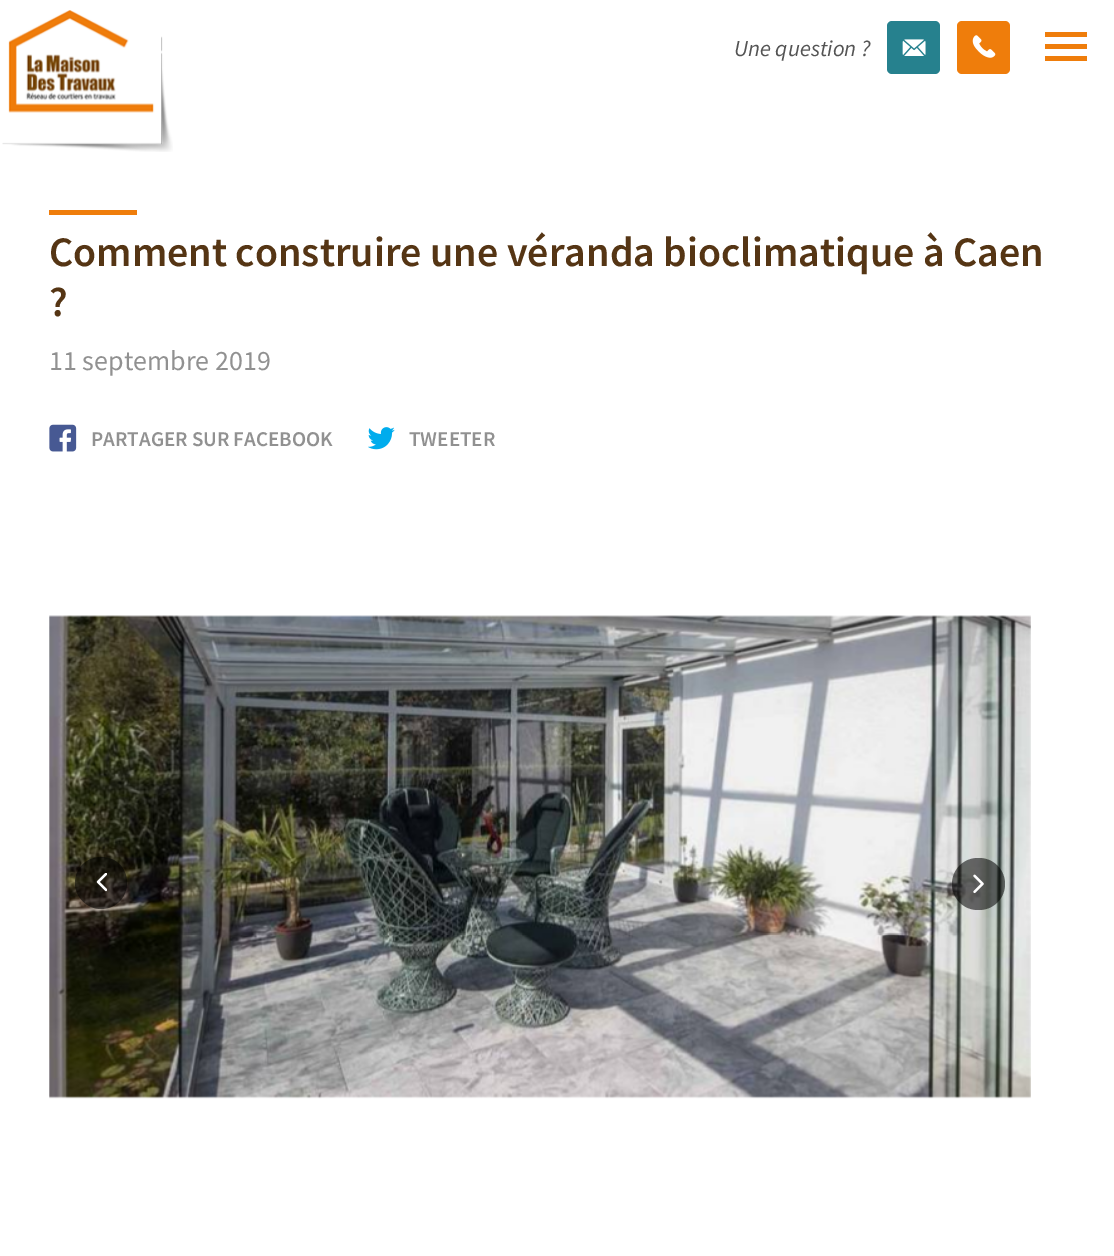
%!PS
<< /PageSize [1114 1256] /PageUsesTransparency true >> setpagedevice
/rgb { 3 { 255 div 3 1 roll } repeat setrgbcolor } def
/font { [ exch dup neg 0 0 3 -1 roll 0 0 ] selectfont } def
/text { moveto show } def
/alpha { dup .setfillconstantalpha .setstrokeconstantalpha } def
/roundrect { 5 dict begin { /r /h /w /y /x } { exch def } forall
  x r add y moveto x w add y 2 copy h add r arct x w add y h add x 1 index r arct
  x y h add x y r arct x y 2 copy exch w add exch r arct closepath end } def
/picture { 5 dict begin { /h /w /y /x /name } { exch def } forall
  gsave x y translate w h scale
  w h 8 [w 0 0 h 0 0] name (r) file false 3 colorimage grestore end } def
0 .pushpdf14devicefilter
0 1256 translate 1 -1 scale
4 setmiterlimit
255 255 255 rgb
0 0 1114 1256 rectfill
(img_01.rgb) 2 10 171 142 picture
38 129 142 rgb
887 21 53 53 5 roundrect fill
(img_02.rgb) 902 39 24 17 picture
239 125 11 rgb
957 21 53 53 5 roundrect fill
(img_03.rgb) 972 35 24 23 picture
1045 32 42 5 rectfill
1045 44 42 5 rectfill
1045 56 42 5 rectfill
49 210 88 5 rectfill
(img_04.rgb) 49 424 28 28 picture
(img_05.rgb) 368 427 27 23 picture
(img_06.rgb) 49 615 982 484 picture
0.55 alpha
0 0 0 rgb
101 909 moveto -14 0 -26 -12 -26 -26 rcurveto 0 -15 12 -26 26 -26 rcurveto 15 0 26 11 26 26 rcurveto 0 14 -11 26 -26 26 rcurveto closepath fill
1 alpha
(img_07.rgb) 96 873 11 19 picture
0.55 alpha
952 858 53 52 26 roundrect fill
1 alpha
(img_08.rgb) 973 874 11 20 picture
/SourceSansPro-Italic 22.75 font
84 84 84 rgb
(Une question ?) 734 56 text
/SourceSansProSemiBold-SemiBold 42 font
85 53 20 rgb
(Comment construire une véranda bioclimatique à Caen) 49 266 text
(?) 49 316 text
/SourceSansPro-Regular 28 font
145 145 145 rgb
(11 septembre 2019) 49 370 text
/SourceSansProSemiBold-SemiBold 21 font
(PARTAGER SUR FACEBOOK) 91 446 text
(TWEETER) 409 446 text
.poppdf14devicefilter showpage
